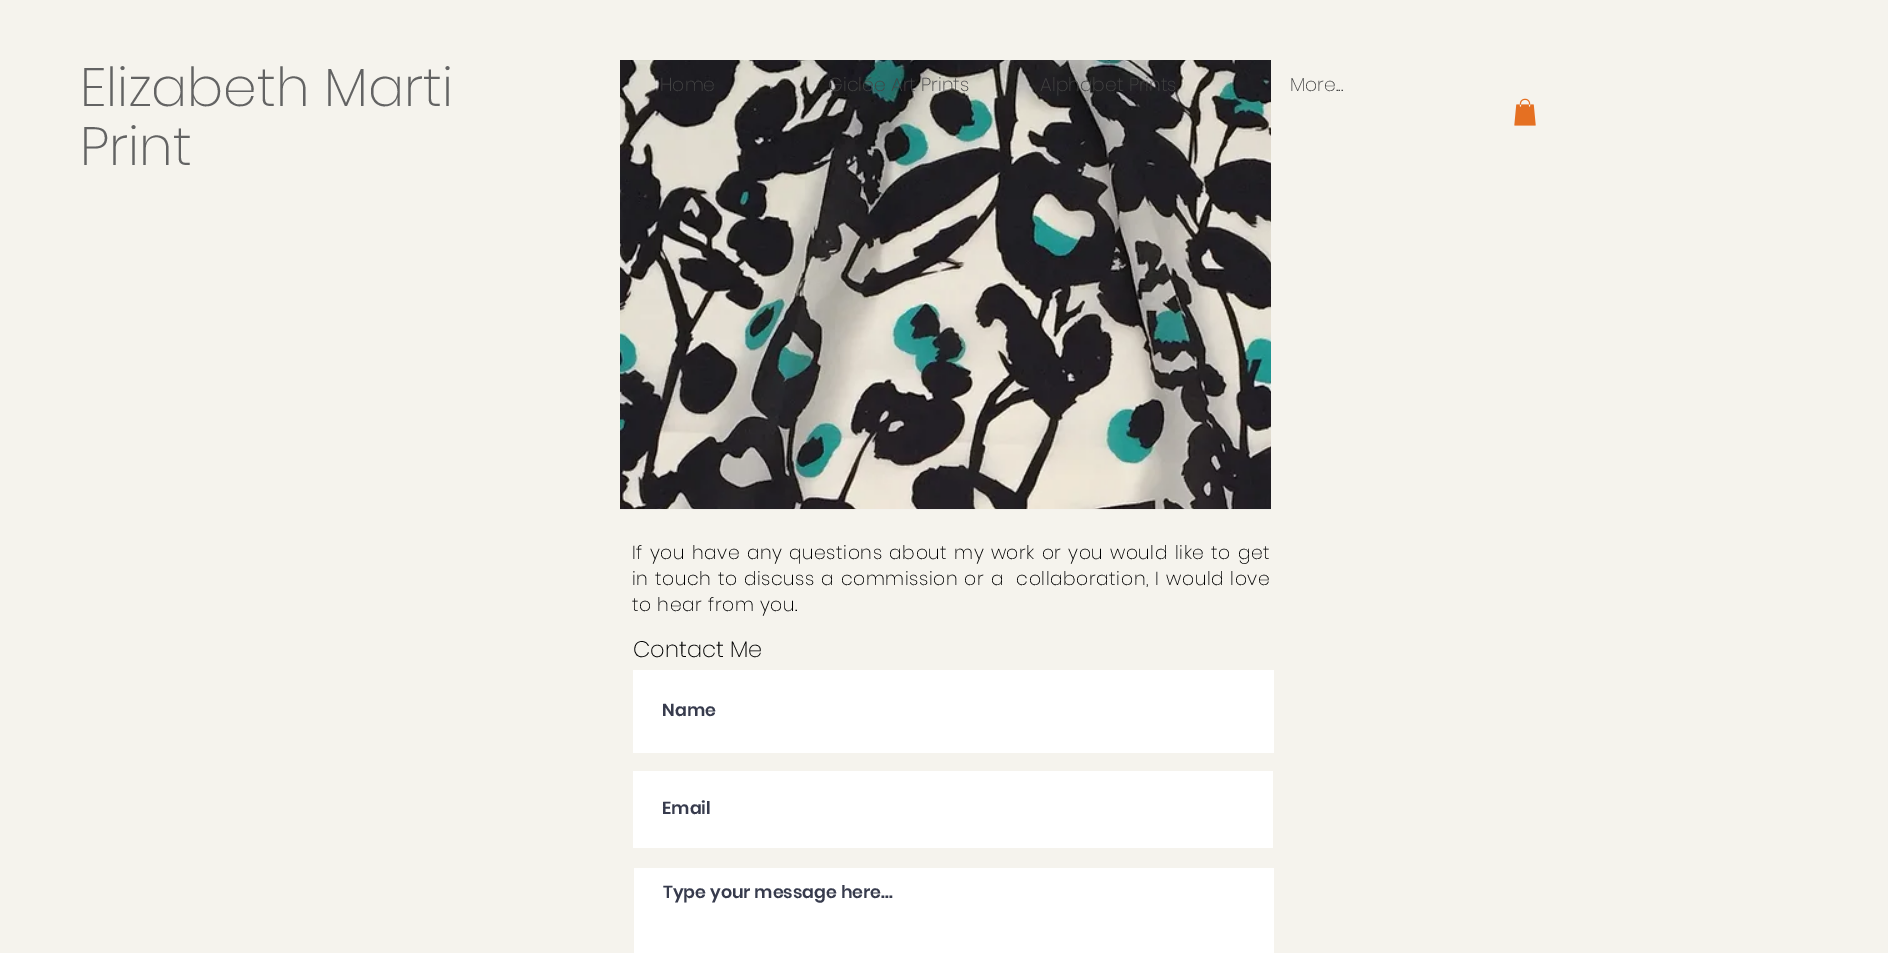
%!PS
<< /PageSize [1888 953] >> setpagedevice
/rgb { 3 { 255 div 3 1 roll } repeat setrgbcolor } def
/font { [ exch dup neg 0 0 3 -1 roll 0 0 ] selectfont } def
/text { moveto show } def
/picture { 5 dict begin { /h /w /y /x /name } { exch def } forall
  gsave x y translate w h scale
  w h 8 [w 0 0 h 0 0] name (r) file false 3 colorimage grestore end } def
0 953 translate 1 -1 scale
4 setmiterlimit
245 243 237 rgb
0 0 1888 953 rectfill
(img_01.rgb) 1514 98 22 28 picture
(img_02.rgb) 620 60 651 450 picture
255 255 255 rgb
633 670 641 83 rectfill
633 771 640 77 rectfill
634 868 640 85 rectfill
/Poppins-ExtraLight 53.75 font
99 99 99 rgb
(Elizabeth Marti) 80 106 text
(Print) 80 165 text
/Poppins-ExtraLight 18.75 font
68 68 68 rgb
(Home) 660 91 text
(Giclée Art Prints) 828 91 text
(Alphabet Prints) 1040 91 text
(More...) 1290 91 text
0 0 0 rgb
632 559 moveto 1 0 32 0.55 0 (If you have any questions about my work or you would like to get) awidthshow
632 585 moveto 0.6 0 32 0.55 0 (in touch to discuss a commission or a  collaboration, I would love) awidthshow
632 611 moveto 0.55 0 (to hear from you.) ashow
/Poppins-ExtraLight 22.5 font
(Contact Me) 633 657 text
/Poppins-SemiBold 17.5 font
55 59 77 rgb
(Name) 662 716 text
(Email) 662 814 text
(Type your message here...) 663 898 text
showpage
